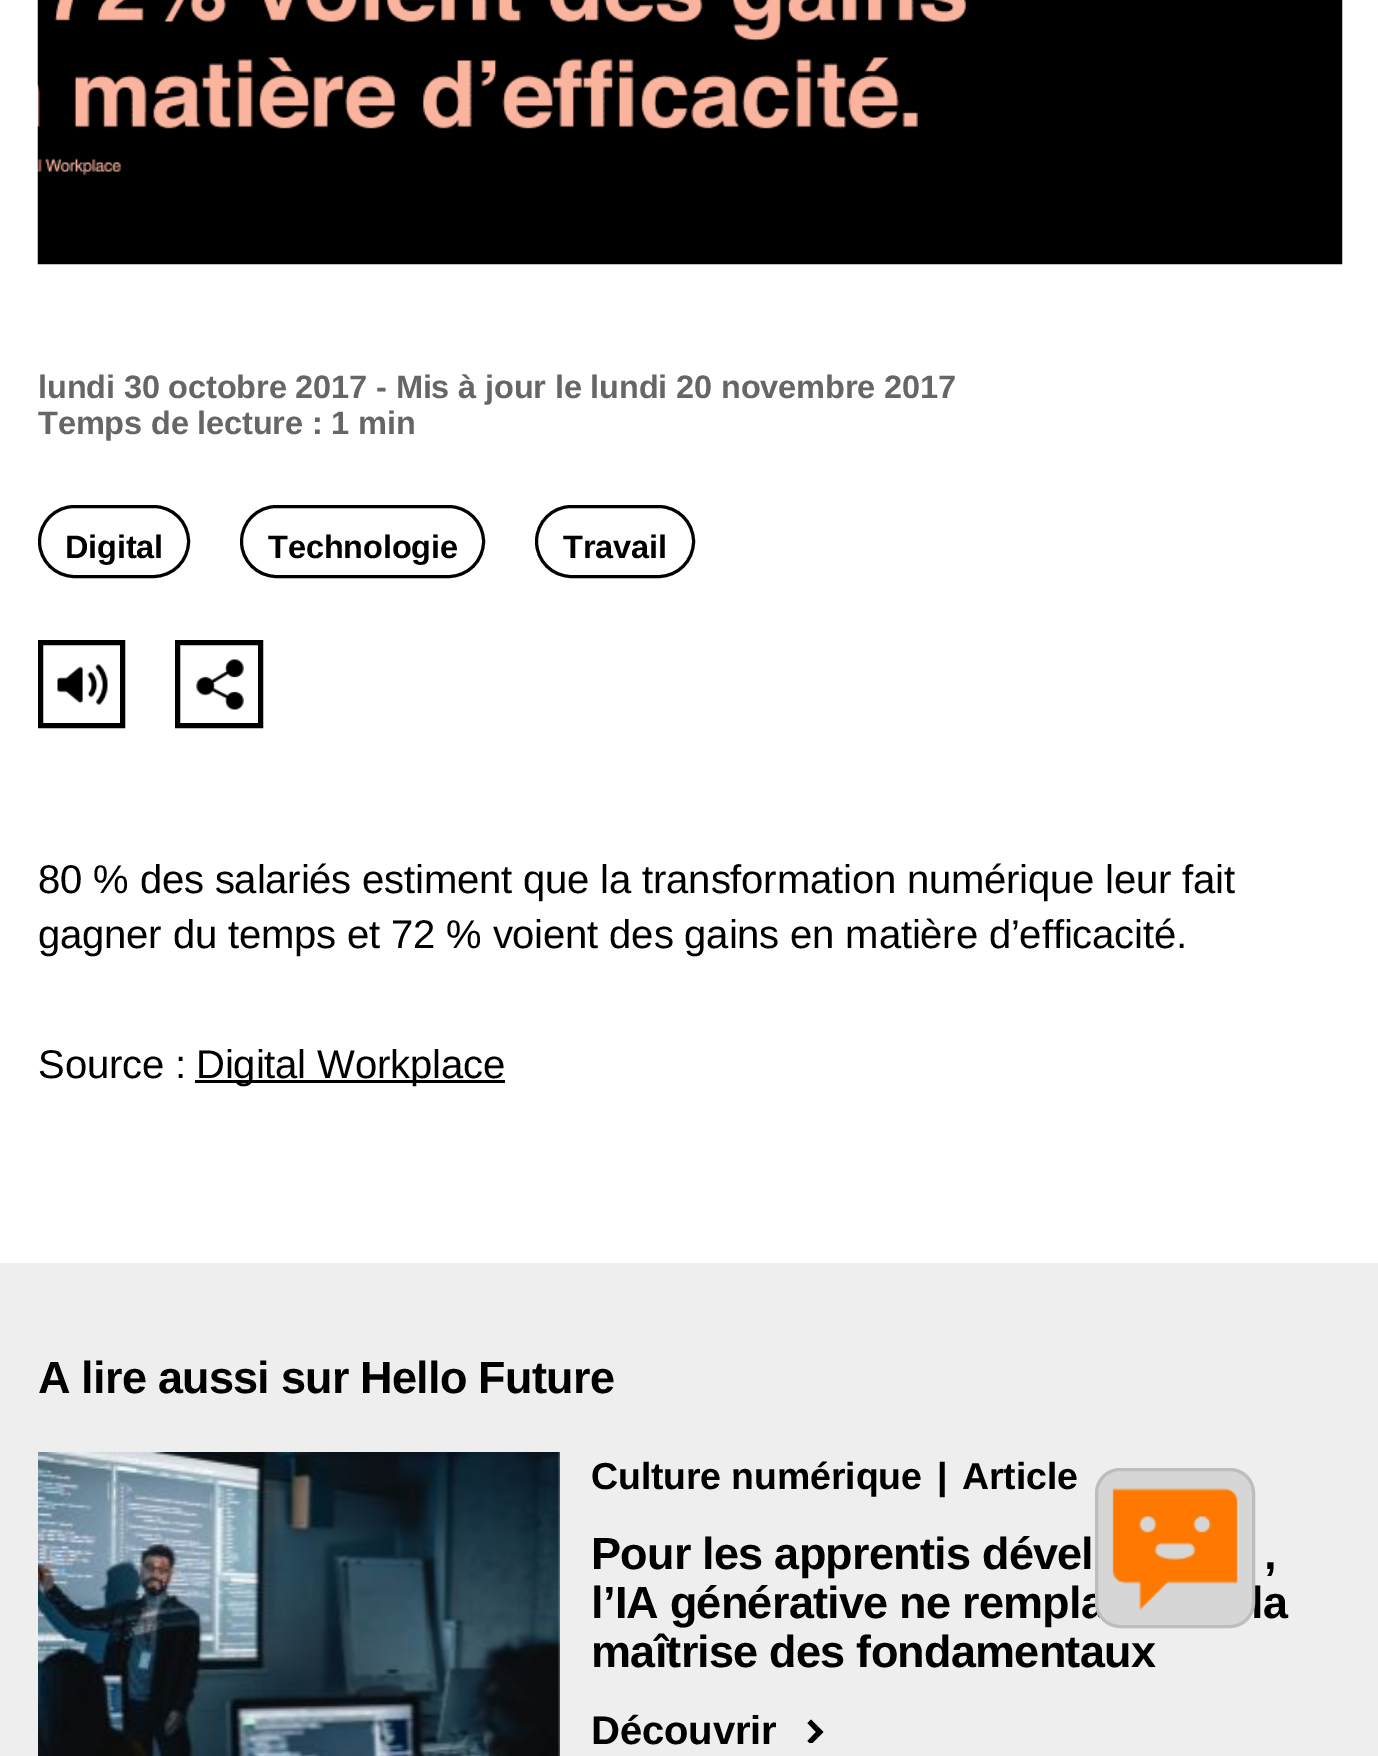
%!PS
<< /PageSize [1378 1756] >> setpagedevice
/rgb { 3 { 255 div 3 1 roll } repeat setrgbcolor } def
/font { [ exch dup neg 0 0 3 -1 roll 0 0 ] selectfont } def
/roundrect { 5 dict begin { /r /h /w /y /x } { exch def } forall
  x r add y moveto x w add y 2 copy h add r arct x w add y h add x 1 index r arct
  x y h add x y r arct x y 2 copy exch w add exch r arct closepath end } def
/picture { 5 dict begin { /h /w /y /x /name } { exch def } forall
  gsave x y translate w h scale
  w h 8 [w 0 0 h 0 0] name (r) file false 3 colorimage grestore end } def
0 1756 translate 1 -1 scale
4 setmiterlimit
255 255 255 rgb
0 0 1378 1756 rectfill
(img_01.rgb) 37 0 1306 265 picture
0 0 0 rgb
3 setlinewidth
39.5 506.5 149 70 35 roundrect stroke
241.5 506.5 242 70 35 roundrect stroke
536.5 506.5 157 70 35 roundrect stroke
5 setlinewidth
40.5 642.5 82 83 rectstroke
(img_02.rgb) 57 664 51 41 picture
177.5 642.5 83 83 rectstroke
(img_03.rgb) 196 659 48 51 picture
195 1080 310 3 rectfill
238 238 238 rgb
0 1263 1378 493 rectfill
(img_04.rgb) 38 1452 522 304 picture
gsave
803 1718 25 25 rectclip
0 0 0 rgb
807.5 1741 moveto 3.5 3.5 rlineto 12.5 -12.5 rlineto -12.5 -12.5 rlineto -3.5 3.5 rlineto 8.5 9 rlineto closepath fill
grestore
/LiberationSans-Bold 32.5 font
102 102 102 rgb
38 398 moveto -0.15 0 (lundi 30 octobre 2017 - Mis à jour le lundi 20 novembre 2017) ashow
38 434 moveto -0.15 0 (Temps de lecture : 1 min) ashow
0 0 0 rgb
65 558 moveto -0.15 0 (Digital) ashow
268 558 moveto -0.15 0 (Technologie) ashow
563 558 moveto -0.15 0 (Travail) ashow
/LiberationSans-Regular 40 font
38 893 moveto -0.15 0 (80 % des salariés estiment que la transformation numérique leur fait) ashow
38 948 moveto -0.15 0 (gagner du temps et 72 % voient des gains en matière d’efficacité.) ashow
38 1078 moveto -0.15 0 (Source :) ashow
196 1078 moveto -0.15 0 (Digital Workplace) ashow
/LiberationSans-Bold 45 font
38 1393 moveto -0.75 0 (A lire aussi sur Hello Future) ashow
/LiberationSans-Bold 37.5 font
591 1489 moveto -0.15 0 (Culture numérique) ashow
937 1489 moveto -0.15 0 (|) ashow
962 1489 moveto -0.15 0 (Article) ashow
/LiberationSans-Bold 45 font
591 1569 moveto -0.75 0 (Pour les apprentis dével) ashow
1264 1569 moveto -0.75 0 (,) ashow
591 1618 moveto -0.75 0 (l’IA générative ne rempla) ashow
1251 1618 moveto -0.75 0 (la) ashow
591 1667 moveto -0.75 0 (maîtrise des fondamentaux) ashow
/LiberationSans-Bold 40 font
591 1744 moveto -0.15 0 (Découvrir) ashow
214 214 214 rgb
1096.5 1469.5 157 157 23.5 roundrect gsave fill grestore
189 189 189 rgb
3 setlinewidth
stroke
(img_05.rgb) 1112 1488 126 122 picture
showpage
